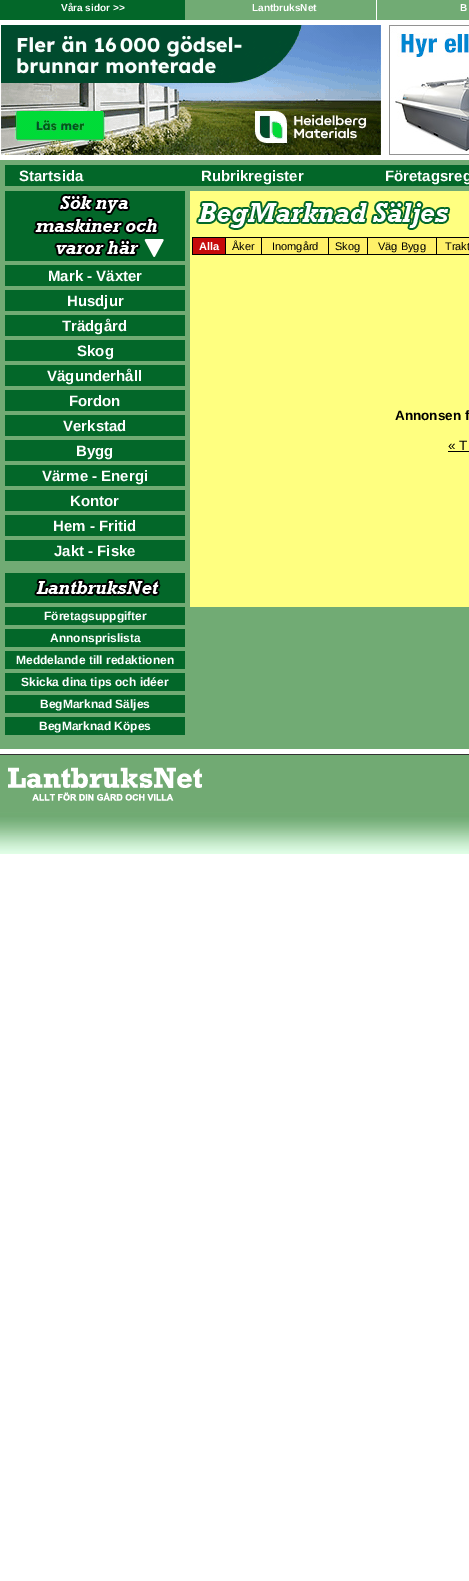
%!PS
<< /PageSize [469 1581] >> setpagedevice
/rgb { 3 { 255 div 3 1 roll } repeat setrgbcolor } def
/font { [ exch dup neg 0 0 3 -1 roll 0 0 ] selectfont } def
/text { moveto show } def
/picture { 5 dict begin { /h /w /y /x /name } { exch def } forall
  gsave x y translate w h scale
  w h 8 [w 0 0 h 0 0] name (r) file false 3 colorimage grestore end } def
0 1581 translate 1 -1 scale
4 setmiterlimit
255 255 255 rgb
0 0 469 1581 rectfill
113 171 116 rgb
185 0 284 20 rectfill
3 103 41 rgb
0 0 185 20 rectfill
255 255 255 rgb
376 0 1 20 rectfill
(img_01.rgb) 1 25 380 130 picture
(img_02.rgb) 389 25 80 130 picture
113 171 116 rgb
0 160 469 589 rectfill
3 103 41 rgb
5 165 464 21 rectfill
5 191 180 70 rectfill
(img_03.rgb) 33 194 131 63 picture
5 265 180 21 rectfill
5 290 180 21 rectfill
5 315 180 21 rectfill
5 340 180 21 rectfill
5 365 180 21 rectfill
5 390 180 21 rectfill
5 415 180 21 rectfill
5 440 180 21 rectfill
5 465 180 21 rectfill
5 490 180 21 rectfill
5 515 180 21 rectfill
5 540 180 21 rectfill
5 573 180 30 rectfill
(img_04.rgb) 34 579 127 17 picture
5 607 180 18 rectfill
5 629 180 18 rectfill
5 651 180 18 rectfill
5 673 180 18 rectfill
5 695 180 18 rectfill
5 717 180 18 rectfill
255 255 128 rgb
190 191 279 416 rectfill
(img_05.rgb) 196 201 255 29 picture
0 0 0 rgb
192 237 277 18 rectfill
198 10 10 rgb
193 238 32 16 rectfill
255 240 104 rgb
226 238 35 16 rectfill
262 238 66 16 rectfill
329 238 38 16 rectfill
368 238 68 16 rectfill
437 238 32 16 rectfill
0 0 0 rgb
448 451 21 1 rectfill
(img_06.rgb) 0 755 469 99 picture
51 51 51 rgb
0 754 469 1 rectfill
(img_07.rgb) 8 767 194 34 picture
/LiberationSans-Bold 10 font
255 255 255 rgb
(Våra sidor >>) 61 11 text
(LantbruksNet) 252 11 text
(B) 460 11 text
/LiberationSans-Bold 15 font
(Startsida) 19 181 text
(Rubrikregister) 201 181 text
(Företagsreg) 385 181 text
(Mark - Växter) 48 281 text
(Husdjur) 67 306 text
(Trädgård) 62 331 text
(Skog) 77 356 text
(Vägunderhåll) 47 381 text
(Fordon) 69 406 text
(Verkstad) 63 431 text
(Bygg) 76 456 text
(Värme - Energi) 42 481 text
(Kontor) 70 506 text
(Hem - Fritid) 53 531 text
(Jakt - Fiske) 54 556 text
/LiberationSans-Bold 12 font
(Företagsuppgifter) 44 620 text
(Annonsprislista) 50 642 text
(Meddelande till redaktionen) 16 664 text
(Skicka dina tips och idéer) 21 686 text
(BegMarknad Säljes) 40 708 text
(BegMarknad Köpes) 39 730 text
/LiberationSans-Bold 11 font
(Alla) 199 250 text
/LiberationSans-Regular 11 font
0 0 0 rgb
(Åker) 232 250 text
(Inomgård) 272 250 text
(Skog) 335 250 text
(Väg Bygg) 378 250 text
(Trakt) 445 250 text
/LiberationSans-Bold 13.5 font
(Annonsen f) 395 420 text
/LiberationSans-Regular 13.5 font
(« Ti) 448 450 text
showpage
